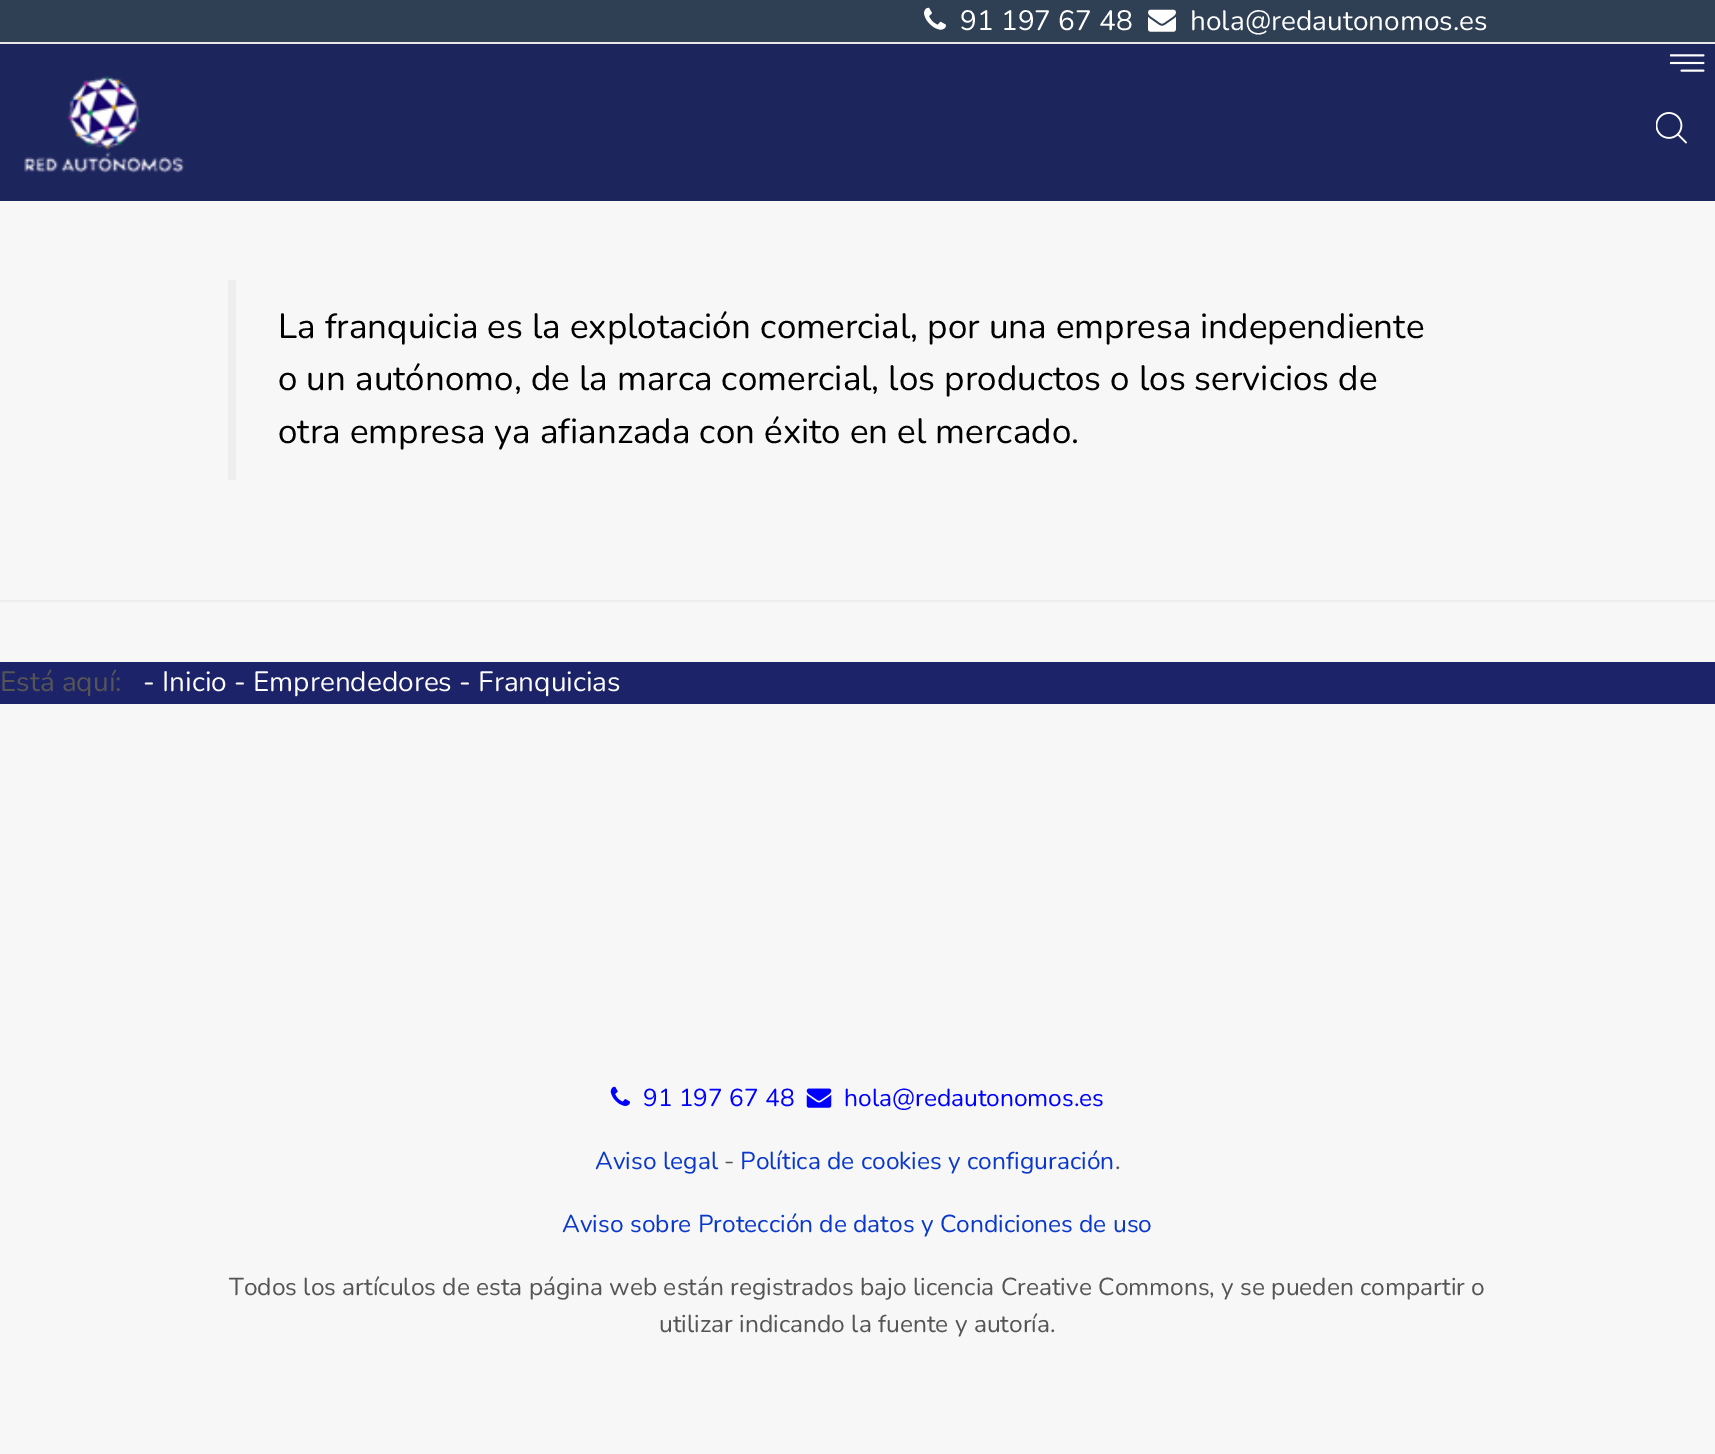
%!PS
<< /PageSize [1715 1454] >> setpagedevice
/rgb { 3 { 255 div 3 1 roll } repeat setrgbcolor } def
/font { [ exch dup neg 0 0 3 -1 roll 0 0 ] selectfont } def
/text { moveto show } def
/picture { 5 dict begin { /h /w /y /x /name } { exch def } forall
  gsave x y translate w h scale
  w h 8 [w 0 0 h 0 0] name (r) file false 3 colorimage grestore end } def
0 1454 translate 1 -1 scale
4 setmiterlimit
247 247 247 rgb
0 0 1715 1454 rectfill
47 63 84 rgb
0 0 1715 42 rectfill
231 231 231 rgb
0 42 1715 2 rectfill
(img_01.rgb) 924 7 22 23 picture
(img_02.rgb) 1148 9 28 23 picture
28 38 93 rgb
0 44 1715 157 rectfill
(img_03.rgb) 24 75 161 99 picture
(img_04.rgb) 1670 54 35 18 picture
(img_05.rgb) 1656 112 31 32 picture
238 238 238 rgb
228 280 8 200 rectfill
0 600 1715 2 rectfill
28 35 105 rgb
0 662 1715 42 rectfill
(img_06.rgb) 610 1086 20 20 picture
(img_07.rgb) 806 1088 26 20 picture
/Nunito-Regular 28 font
255 255 255 rgb
(91 197 67 48) 960 30 text
(hola@redautonomos.es) 1190 30 text
/Nunito-Regular 35 font
0 0 0 rgb
(La franquicia es la explotación comercial, por una empresa independiente) 278 338 text
(o un autónomo, de la marca comercial, los productos o los servicios de) 278 390 text
(otra empresa ya afianzada con éxito en el mercado.) 278 443 text
/Nunito-Regular 28 font
85 85 85 rgb
(Está aquí:) 0 691 text
255 255 255 rgb
(- Inicio - Emprendedores - Franquicias) 143 691 text
/Nunito-Regular 24.5 font
0 0 255 rgb
(91 197 67 48) 643 1106 text
(hola@redautonomos.es) 844 1106 text
10 56 202 rgb
(Aviso legal) 595 1169 text
85 85 85 rgb
(-) 724 1169 text
10 56 202 rgb
(Política de cookies y configuración) 740 1169 text
85 85 85 rgb
(.) 1115 1169 text
10 56 202 rgb
(Aviso sobre Protección de datos y Condiciones de uso) 562 1232 text
85 85 85 rgb
(Todos los artículos de esta página web están registrados bajo licencia Creative Commons, y se pueden compartir o) 229 1295 text
(utilizar indicando la fuente y autoría.) 659 1332 text
showpage
